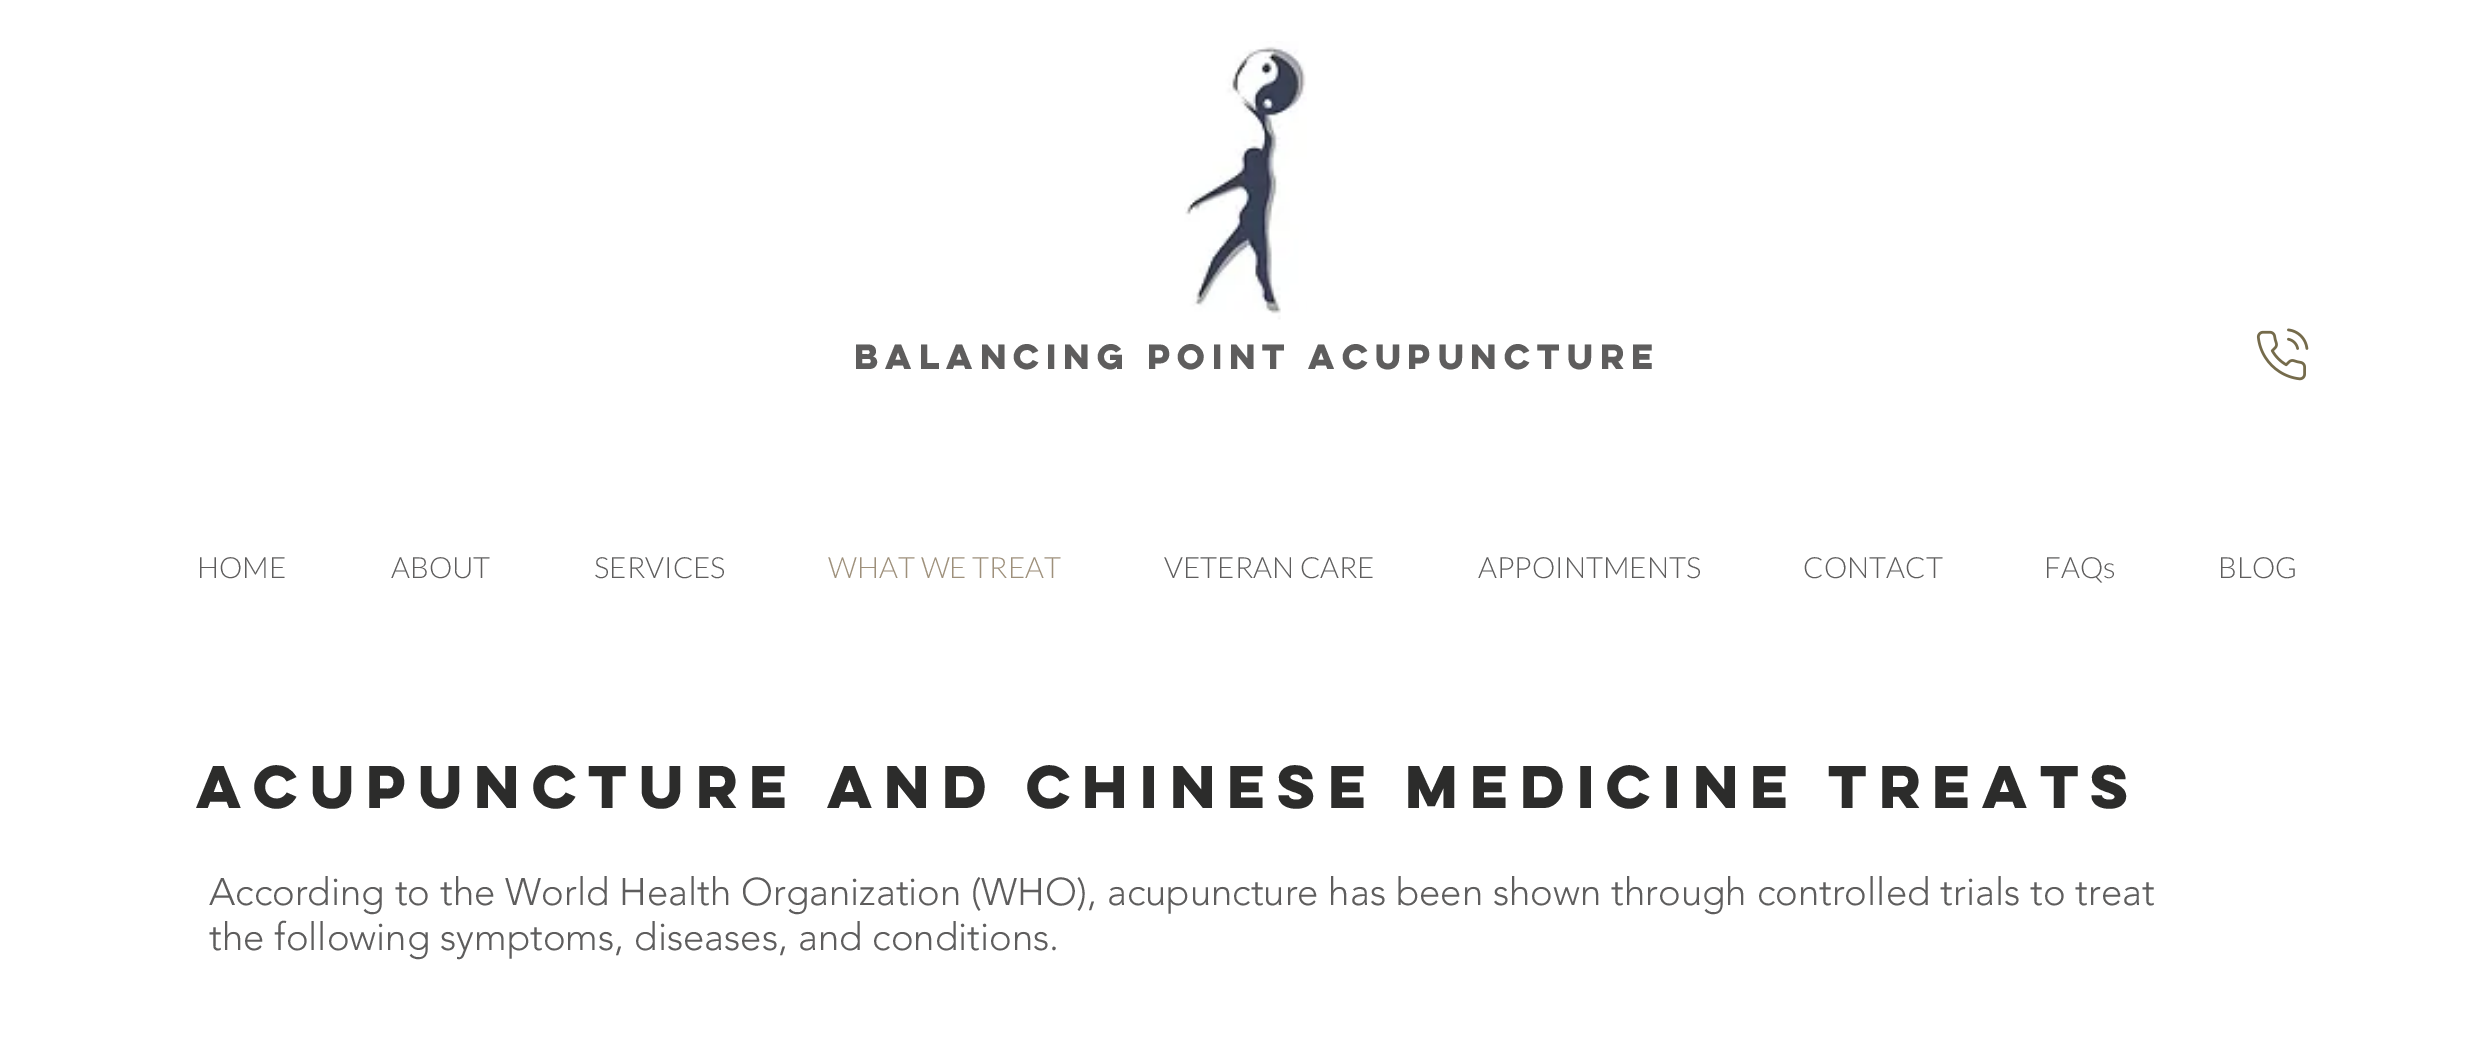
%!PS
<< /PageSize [2491 1046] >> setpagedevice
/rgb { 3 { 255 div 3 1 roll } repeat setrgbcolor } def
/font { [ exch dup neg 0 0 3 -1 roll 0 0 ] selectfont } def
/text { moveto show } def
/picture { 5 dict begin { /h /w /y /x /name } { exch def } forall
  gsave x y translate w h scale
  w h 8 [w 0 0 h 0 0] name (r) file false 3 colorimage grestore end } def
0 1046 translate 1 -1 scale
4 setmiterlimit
255 255 255 rgb
0 0 2491 1046 rectfill
(img_01.rgb) 1184 41 123 279 picture
(img_02.rgb) 2256 328 53 53 picture
/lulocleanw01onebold-Bold 31.5 font
94 93 93 rgb
(Balancing Point Acupuncture) 854 369 text
/Lato-Light 29.25 font
(HOME) 197 578 text
(ABOUT) 391 578 text
(SERVICES) 594 578 text
158 144 123 rgb
(WHAT WE TREAT) 828 578 text
94 93 93 rgb
(VETERAN CARE) 1164 578 text
(APPOINTMENTS) 1478 578 text
(CONTACT) 1803 578 text
(FAQs) 2044 578 text
(BLOG) 2218 578 text
/lulocleanw01onebold-Bold 54 font
44 44 43 rgb
(Acupuncture and Chinese medicine treats) 196 808 text
/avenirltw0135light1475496-Light 38.25 font
94 93 93 rgb
(According to the World Health Organization \(WHO\), acupuncture has been shown through controlled trials to treat) 209 905 text
(the following symptoms, diseases, and conditions.) 209 950 text
showpage
